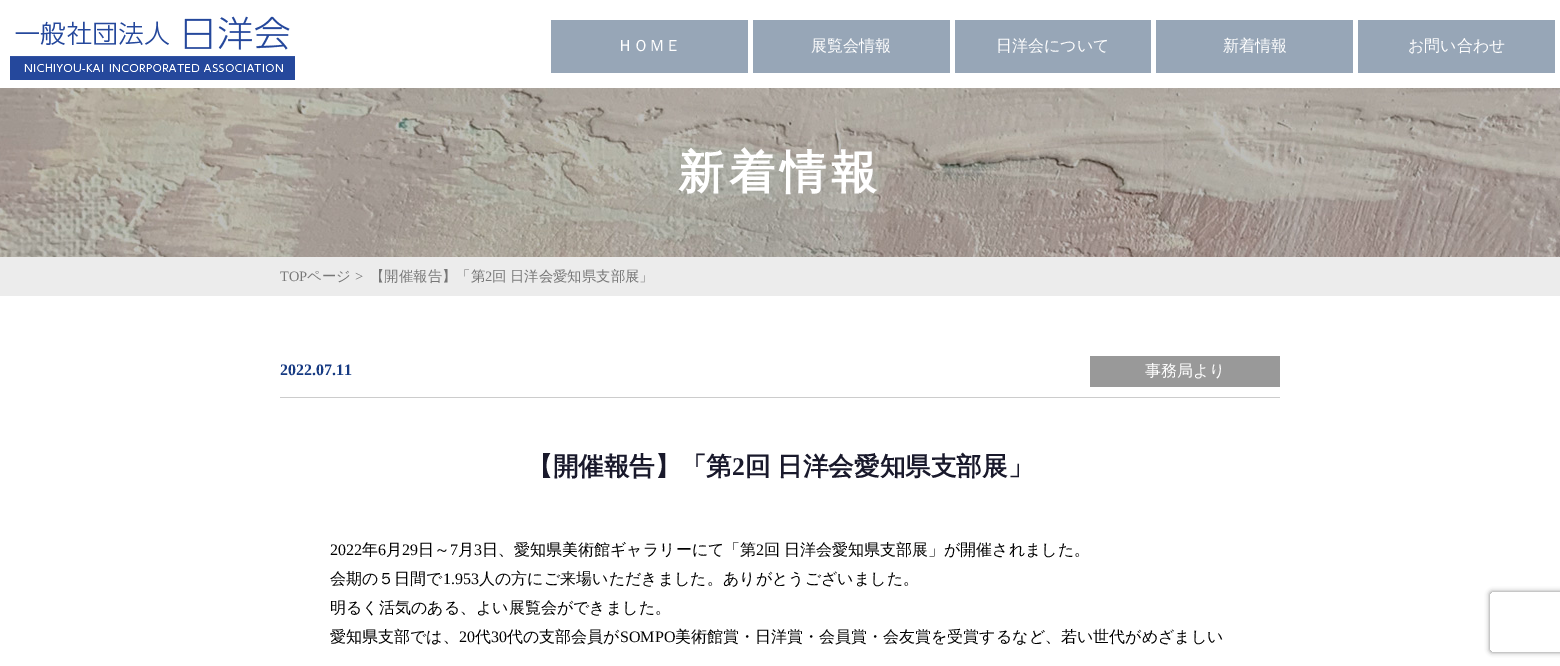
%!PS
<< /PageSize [1560 666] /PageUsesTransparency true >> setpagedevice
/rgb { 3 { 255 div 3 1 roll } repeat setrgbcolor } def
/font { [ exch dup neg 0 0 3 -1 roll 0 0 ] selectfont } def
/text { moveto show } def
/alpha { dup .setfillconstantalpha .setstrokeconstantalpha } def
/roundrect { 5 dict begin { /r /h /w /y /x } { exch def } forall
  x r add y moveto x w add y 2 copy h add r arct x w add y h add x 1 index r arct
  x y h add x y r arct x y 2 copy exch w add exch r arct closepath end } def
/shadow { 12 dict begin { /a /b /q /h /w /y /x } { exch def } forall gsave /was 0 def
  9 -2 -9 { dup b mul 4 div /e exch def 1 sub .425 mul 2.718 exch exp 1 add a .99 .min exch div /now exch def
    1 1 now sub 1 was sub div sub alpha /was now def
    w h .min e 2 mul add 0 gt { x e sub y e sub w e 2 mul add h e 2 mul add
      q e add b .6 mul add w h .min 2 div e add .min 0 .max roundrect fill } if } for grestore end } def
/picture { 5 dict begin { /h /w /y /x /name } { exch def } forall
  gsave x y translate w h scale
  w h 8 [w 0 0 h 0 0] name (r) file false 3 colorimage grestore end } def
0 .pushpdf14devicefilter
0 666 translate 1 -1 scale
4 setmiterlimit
255 255 255 rgb
0 0 1560 666 rectfill
(img_01.rgb) 10 16 285 64 picture
151 166 183 rgb
551 20 197 53 rectfill
753 20 197 53 rectfill
955 20 196 53 rectfill
1156 20 197 53 rectfill
1358 20 197 53 rectfill
(img_02.rgb) 0 88 1560 169 picture
236 236 236 rgb
0 257 1560 39 rectfill
204 204 204 rgb
280 397 1000 1 rectfill
153 153 153 rgb
1090 356 190 31 rectfill
gsave
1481 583 moveto 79 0 rlineto 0 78 rlineto -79 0 rlineto closepath 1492 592 moveto 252 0 rlineto 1 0 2 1 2 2 rcurveto 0 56 rlineto 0 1 -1 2 -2 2 rcurveto -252 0 rlineto -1 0 -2 -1 -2 -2 rcurveto 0 -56 rlineto 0 -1 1 -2 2 -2 rcurveto closepath eoclip newpath
128 128 128 rgb
1490 592 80 60 2 2.5 1 shadow
grestore
/WenQuanYiZenHei-Medium 16 font
255 255 255 rgb
(ＨＯＭＥ) 617 51 text
(展覧会情報) 811 51 text
(日洋会について) 996 51 text
(新着情報) 1223 51 text
(お問い合わせ) 1408 51 text
/WenQuanYiZenHei-Bold 46 font
678 188 moveto 5 0 (新着情報) ashow
/LiberationSerif-Regular 14.4 font
119 119 119 rgb
(TOP) 280 281 text
/WenQuanYiZenHei-Medium 14.4 font
(ページ) 307 281 text
/LiberationSerif-Regular 14.4 font
(>) 355 281 text
/WenQuanYiZenHei-Medium 14.4 font
(【開催報告】「第) 370 281 text
/LiberationSerif-Regular 14.4 font
(2) 485 281 text
/WenQuanYiZenHei-Medium 14.4 font
492 281 moveto -1 0 32 (回 日洋会愛知県支部展」) widthshow
/LiberationSerif-Bold 16 font
22 58 130 rgb
(2022.07.11) 280 375 text
/WenQuanYiZenHei-Medium 16 font
255 255 255 rgb
(事務局より) 1145 376 text
/WenQuanYiZenHei-Bold 25.6 font
25 25 43 rgb
(【開催報告】「第) 527 475 text
/LiberationSerif-Bold 25.6 font
(2) 732 475 text
/WenQuanYiZenHei-Bold 25.6 font
745 475 moveto -1 0 32 (回 日洋会愛知県支部展」) widthshow
/LiberationSerif-Regular 16 font
0 0 0 rgb
(2022) 330 555 text
/WenQuanYiZenHei-Medium 16 font
(年) 362 555 text
/LiberationSerif-Regular 16 font
(6) 378 555 text
/WenQuanYiZenHei-Medium 16 font
(月) 386 555 text
/LiberationSerif-Regular 16 font
(29) 402 555 text
/WenQuanYiZenHei-Medium 16 font
(日～) 418 555 text
/LiberationSerif-Regular 16 font
(7) 450 555 text
/WenQuanYiZenHei-Medium 16 font
(月) 458 555 text
/LiberationSerif-Regular 16 font
(3) 474 555 text
/WenQuanYiZenHei-Medium 16 font
(日、愛知県美術館ギャラリーにて「第) 482 555 text
/LiberationSerif-Regular 16 font
(2) 756 555 text
/WenQuanYiZenHei-Medium 16 font
764 555 moveto -1 0 32 (回 日洋会愛知県支部展」が開催されました。) widthshow
(会期の５日間で) 330 584 text
/LiberationSerif-Regular 16 font
(1.953) 443 584 text
/WenQuanYiZenHei-Medium 16 font
(人の方にご来場いただきました。ありがとうございました。) 479 584 text
(明るく活気のある、よい展覧会ができました。) 330 613 text
(愛知県支部では、) 330 642 text
/LiberationSerif-Regular 16 font
(20) 459 642 text
/WenQuanYiZenHei-Medium 16 font
(代) 475 642 text
/LiberationSerif-Regular 16 font
(30) 491 642 text
/WenQuanYiZenHei-Medium 16 font
(代の支部会員が) 507 642 text
/LiberationSerif-Regular 16 font
(SOMPO) 620 642 text
/WenQuanYiZenHei-Medium 16 font
(美術館賞・日洋賞・会員賞・会友賞を受賞するなど、若い世代がめざましい) 675 642 text
.poppdf14devicefilter showpage
